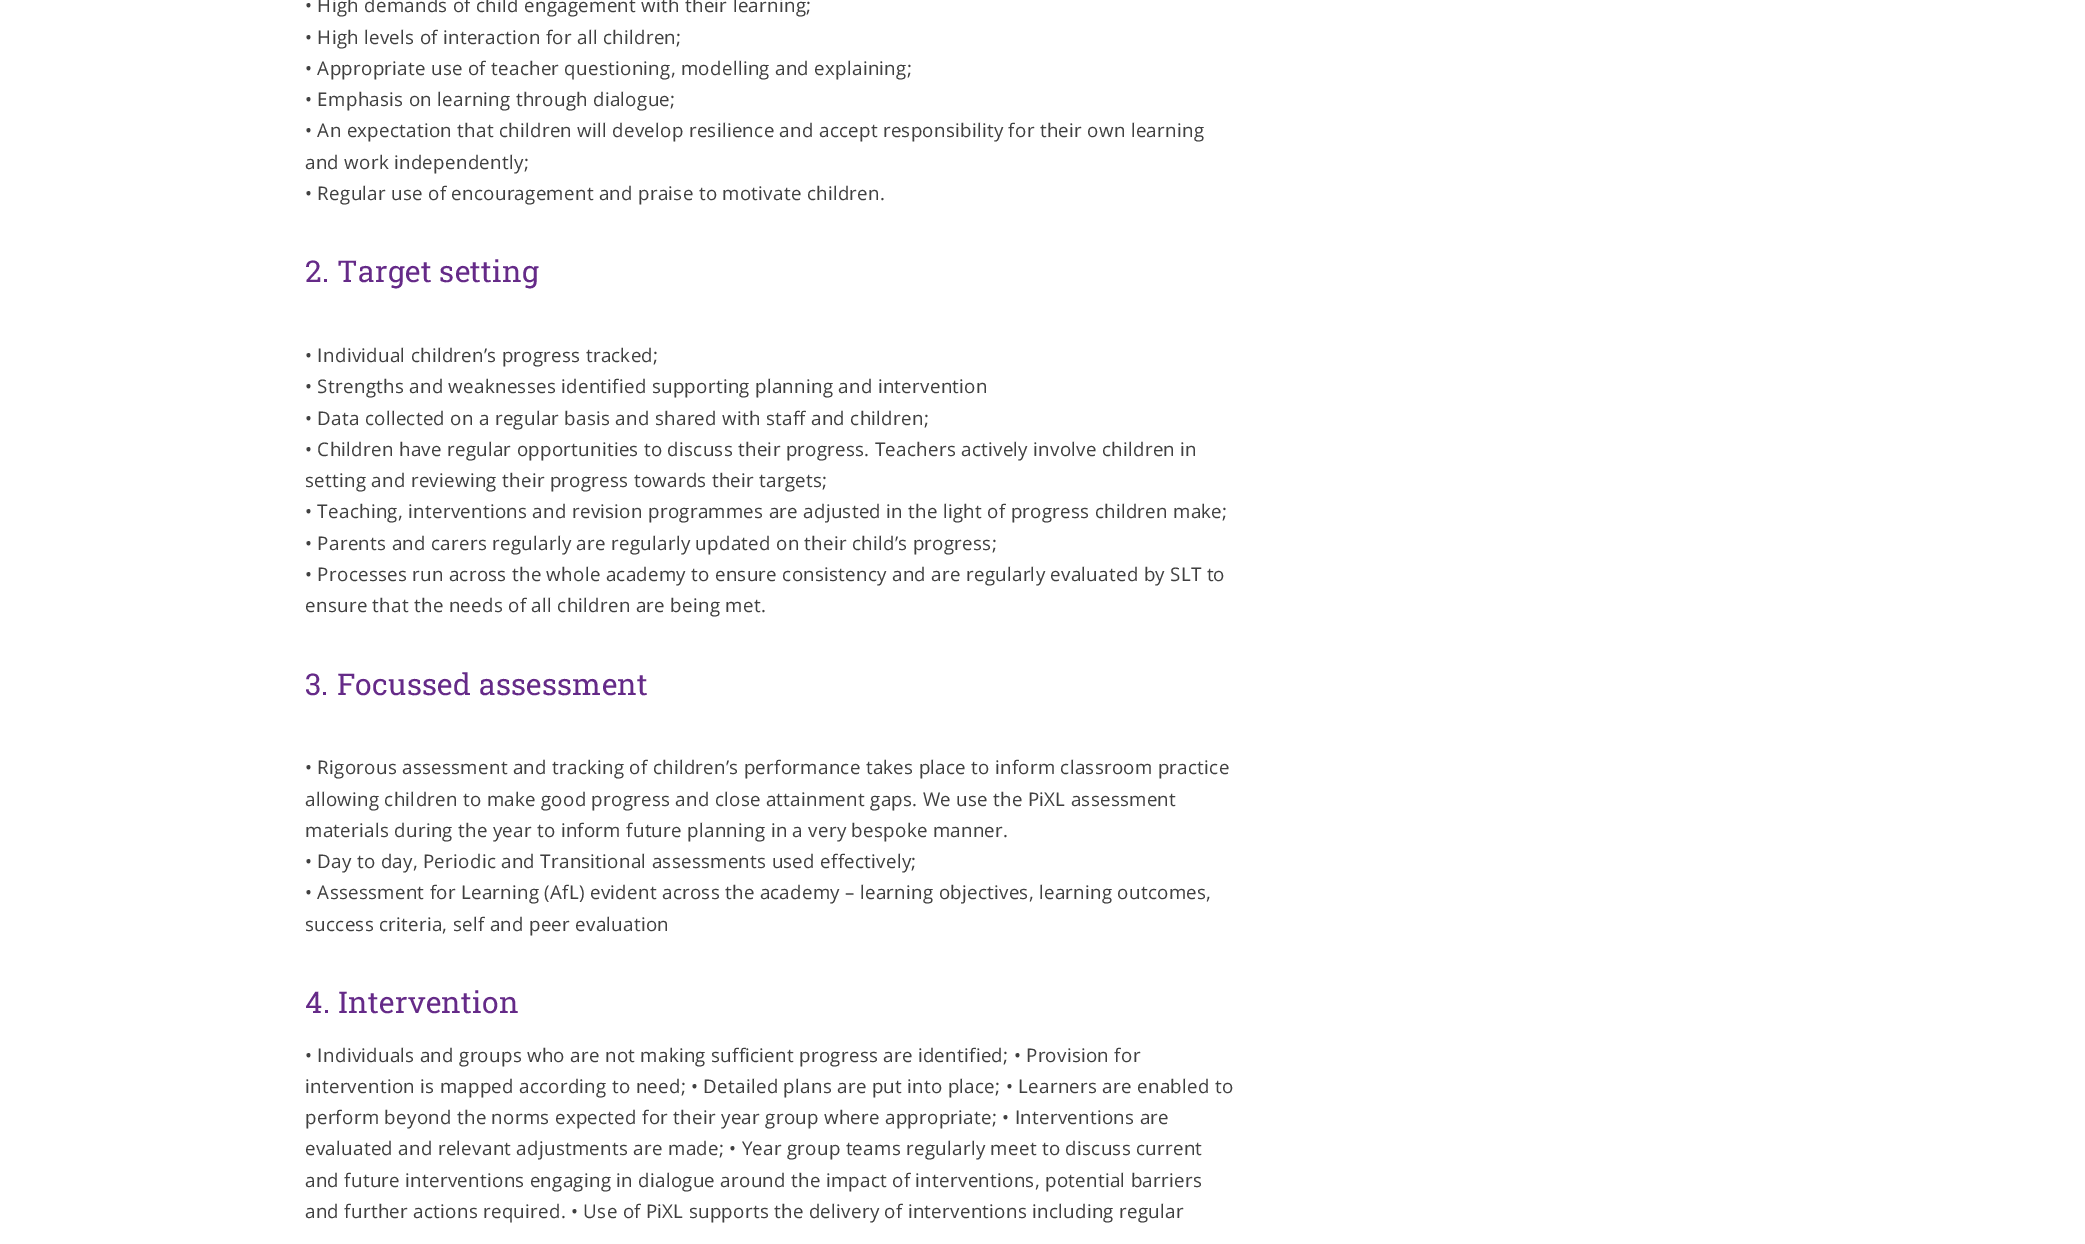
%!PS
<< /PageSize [2085 1244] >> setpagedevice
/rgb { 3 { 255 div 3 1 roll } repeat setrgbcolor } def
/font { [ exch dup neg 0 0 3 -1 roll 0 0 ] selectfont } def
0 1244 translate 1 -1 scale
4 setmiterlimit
255 255 255 rgb
0 0 2085 1244 rectfill
/OpenSans-Regular 18.75 font
64 64 64 rgb
305 12 moveto 0.28 0 (• High demands of child engagement with their learning;) ashow
305 44 moveto 0.28 0 (• High levels of interaction for all children;) ashow
305 75 moveto 0.28 0 (• Appropriate use of teacher questioning, modelling and explaining;) ashow
305 106 moveto 0.28 0 (• Emphasis on learning through dialogue;) ashow
305 137 moveto 0.28 0 (• An expectation that children will develop resilience and accept responsibility for their own learning) ashow
305 169 moveto 0.28 0 (and work independently;) ashow
305 200 moveto 0.28 0 (• Regular use of encouragement and praise to motivate children.) ashow
/RobotoSlab-Regular 30 font
101 42 136 rgb
305 282 moveto 0.28 0 (2. Target setting) ashow
/OpenSans-Regular 18.75 font
64 64 64 rgb
305 362 moveto 0.28 0 (• Individual children’s progress tracked;) ashow
305 393 moveto 0.28 0 (• Strengths and weaknesses identified supporting planning and intervention) ashow
305 425 moveto 0.28 0 (• Data collected on a regular basis and shared with staff and children;) ashow
305 456 moveto 0.28 0 (• Children have regular opportunities to discuss their progress. Teachers actively involve children in) ashow
305 487 moveto 0.28 0 (setting and reviewing their progress towards their targets;) ashow
305 518 moveto 0.28 0 (• Teaching, interventions and revision programmes are adjusted in the light of progress children make;) ashow
305 550 moveto 0.28 0 (• Parents and carers regularly are regularly updated on their child’s progress;) ashow
305 581 moveto 0.28 0 (• Processes run across the whole academy to ensure consistency and are regularly evaluated by SLT to) ashow
305 612 moveto 0.28 0 (ensure that the needs of all children are being met.) ashow
/RobotoSlab-Regular 30 font
101 42 136 rgb
305 695 moveto 0.28 0 (3. Focussed assessment) ashow
/OpenSans-Regular 18.75 font
64 64 64 rgb
305 774 moveto 0.28 0 (• Rigorous assessment and tracking of children’s performance takes place to inform classroom practice) ashow
305 806 moveto 0.28 0 (allowing children to make good progress and close attainment gaps. We use the PiXL assessment) ashow
305 837 moveto 0.28 0 (materials during the year to inform future planning in a very bespoke manner.) ashow
305 868 moveto 0.28 0 (• Day to day, Periodic and Transitional assessments used effectively;) ashow
305 899 moveto 0.28 0 (• Assessment for Learning \(AfL\) evident across the academy – learning objectives, learning outcomes,) ashow
305 931 moveto 0.28 0 (success criteria, self and peer evaluation) ashow
/RobotoSlab-Regular 30 font
101 42 136 rgb
305 1013 moveto 0.28 0 (4. Intervention) ashow
/OpenSans-Regular 18.75 font
64 64 64 rgb
305 1062 moveto 0.28 0 (• Individuals and groups who are not making sufficient progress are identified; • Provision for) ashow
305 1093 moveto 0.28 0 (intervention is mapped according to need; • Detailed plans are put into place; • Learners are enabled to) ashow
305 1124 moveto 0.28 0 (perform beyond the norms expected for their year group where appropriate; • Interventions are) ashow
305 1155 moveto 0.28 0 (evaluated and relevant adjustments are made; • Year group teams regularly meet to discuss current) ashow
305 1187 moveto 0.28 0 (and future interventions engaging in dialogue around the impact of interventions, potential barriers) ashow
305 1218 moveto 0.28 0 (and further actions required. • Use of PiXL supports the delivery of interventions including regular) ashow
showpage
